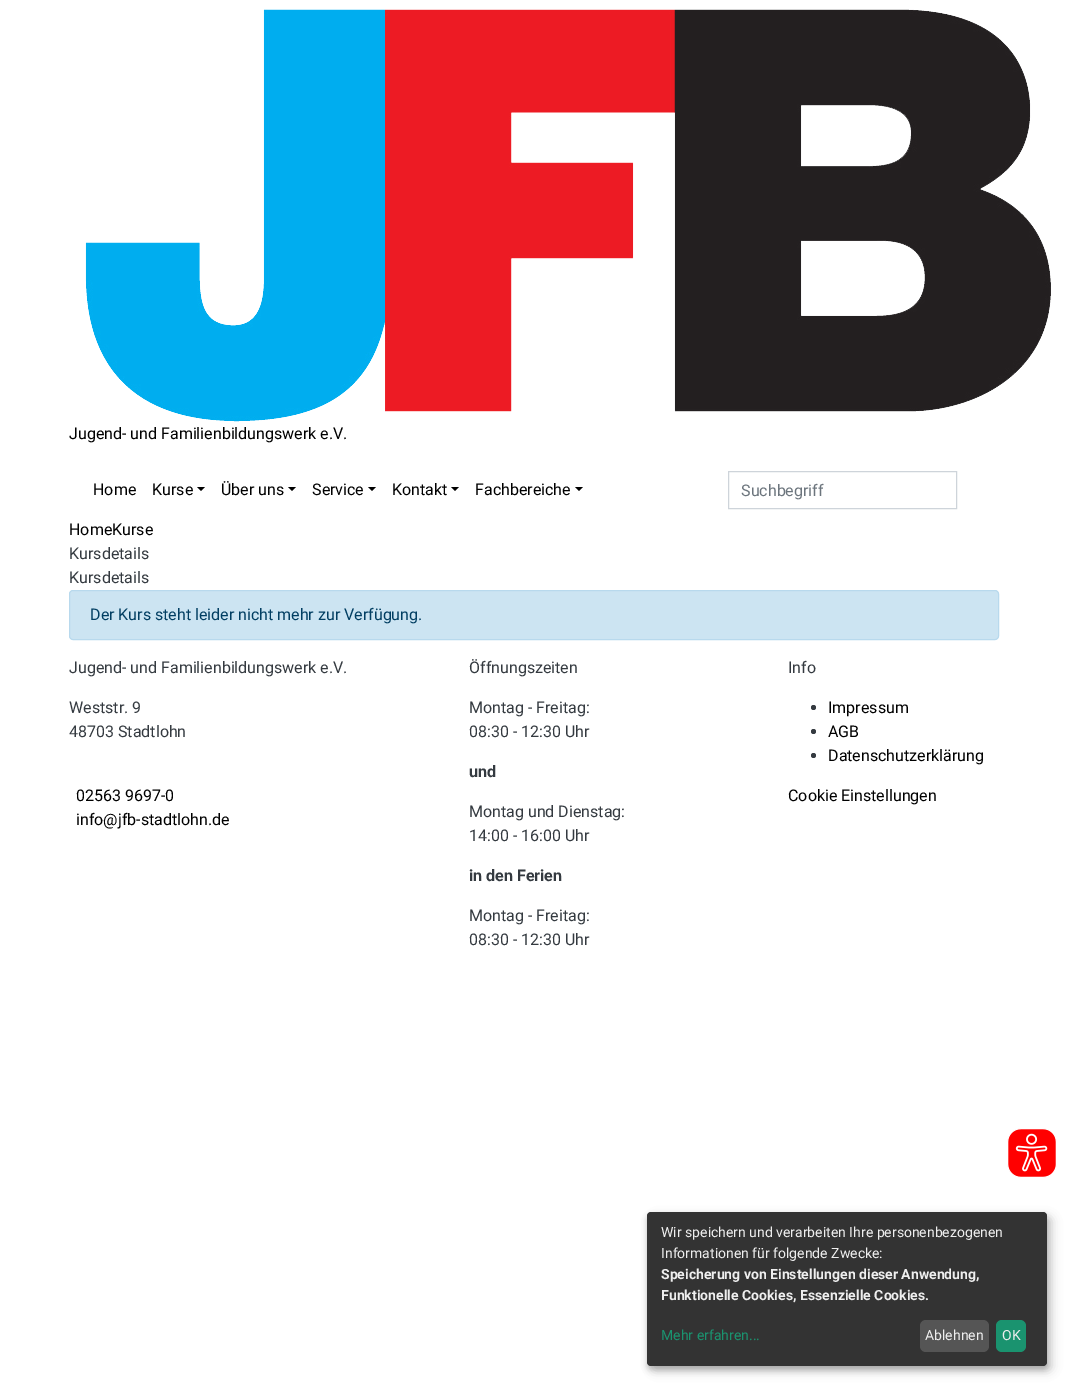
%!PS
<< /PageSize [1067 1386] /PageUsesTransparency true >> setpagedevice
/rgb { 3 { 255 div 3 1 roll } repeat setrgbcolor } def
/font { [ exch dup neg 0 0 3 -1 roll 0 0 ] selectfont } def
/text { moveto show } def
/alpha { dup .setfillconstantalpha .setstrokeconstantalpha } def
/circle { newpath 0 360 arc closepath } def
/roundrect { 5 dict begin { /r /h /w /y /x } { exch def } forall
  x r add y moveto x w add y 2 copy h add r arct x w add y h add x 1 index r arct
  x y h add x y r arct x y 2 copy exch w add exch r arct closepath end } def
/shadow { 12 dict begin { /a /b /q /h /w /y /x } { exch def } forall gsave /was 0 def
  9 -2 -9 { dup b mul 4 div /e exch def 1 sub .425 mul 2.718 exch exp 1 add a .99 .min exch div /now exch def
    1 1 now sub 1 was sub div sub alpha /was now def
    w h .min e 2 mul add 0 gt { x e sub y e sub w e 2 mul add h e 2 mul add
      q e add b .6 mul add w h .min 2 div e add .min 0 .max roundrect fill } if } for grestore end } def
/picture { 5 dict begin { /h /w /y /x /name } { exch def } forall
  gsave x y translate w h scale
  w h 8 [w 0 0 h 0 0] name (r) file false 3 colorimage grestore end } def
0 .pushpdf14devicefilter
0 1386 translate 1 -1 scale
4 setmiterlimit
255 255 255 rgb
0 0 1067 1386 rectfill
(img_01.rgb) 85 9 966 413 picture
0 0 0 rgb
197 487 moveto 8 0 rlineto -4 4 rlineto closepath fill
288 487 moveto 8 0 rlineto -4 4 rlineto closepath fill
368 487 moveto 8 0 rlineto -4 4 rlineto closepath fill
451 487 moveto 8 0 rlineto -4 4 rlineto closepath fill
575 487 moveto 8 0 rlineto -4 4 rlineto closepath fill
206 212 218 rgb
728.5 471.5 228 37 rectstroke
204 228 242 rgb
69.5 590.5 929 49 3.5 roundrect gsave fill grestore
184 217 237 rgb
stroke
52 58 64 rgb
813.5 707.5 2.5 circle fill
813.5 731.5 2.5 circle fill
813.5 755.5 2.5 circle fill
(img_02.rgb) 1007 1128 50 50 picture
0 0 0 rgb
652 1217 400 154 4 5 0.19 shadow
647 1216 400 154 4 3 0.2 shadow
51 51 51 rgb
647 1212 400 154 4 roundrect fill
85 85 85 rgb
920 1320 69 32 6 roundrect fill
26 147 111 rgb
996 1320 30 32 6 roundrect fill
/Roboto-Regular 16 font
0 0 0 rgb
(Jugend- und Familienbildungswerk e.V.) 69 439 text
(Home) 93 495 text
(Kurse) 152 495 text
(Über uns) 221 495 text
(Service) 312 495 text
(Kontakt) 392 495 text
(Fachbereiche) 475 495 text
108 117 125 rgb
(Suchbegriff) 741 496 text
0 0 0 rgb
(HomeKurse) 69 535 text
52 58 64 rgb
(Kursdetails) 69 559 text
(Kursdetails) 69 583 text
1 62 98 rgb
(Der Kurs steht leider nicht mehr zur Verfügung.) 90 620 text
52 58 64 rgb
(Jugend- und Familienbildungswerk e.V.) 69 673 text
(Weststr. 9) 69 713 text
(48703 Stadtlohn) 69 737 text
0 0 0 rgb
(02563 9697-0) 76 801 text
(info@jfb-stadtlohn.de) 76 825 text
52 58 64 rgb
(Öffnungszeiten) 469 673 text
(Montag - Freitag:) 469 713 text
(08:30 - 12:30 Uhr) 469 737 text
/Roboto-Bold 16 font
(und) 469 777 text
/Roboto-Regular 16 font
(Montag und Dienstag:) 469 817 text
(14:00 - 16:00 Uhr) 469 841 text
/Roboto-Bold 16 font
(in den Ferien) 469 881 text
/Roboto-Regular 16 font
(Montag - Freitag:) 469 921 text
(08:30 - 12:30 Uhr) 469 945 text
(Info) 788 673 text
0 0 0 rgb
(Impressum) 828 713 text
(AGB) 828 737 text
(Datenschutzerklärung) 828 761 text
(Cookie Einstellungen) 788 801 text
/Roboto-Regular 14 font
238 238 238 rgb
(Wir speichern und verarbeiten Ihre personenbezogenen) 661 1237 text
(Informationen für folgende Zwecke:) 661 1258 text
/Roboto-Bold 14 font
(Speicherung von Einstellungen dieser Anwendung,) 661 1279 text
(Funktionelle Cookies, Essenzielle Cookies.) 661 1300 text
/Roboto-Regular 14 font
26 147 111 rgb
(Mehr erfahren...) 661 1340 text
238 238 238 rgb
(Ablehnen) 925 1340 text
(OK) 1002 1340 text
.poppdf14devicefilter showpage
